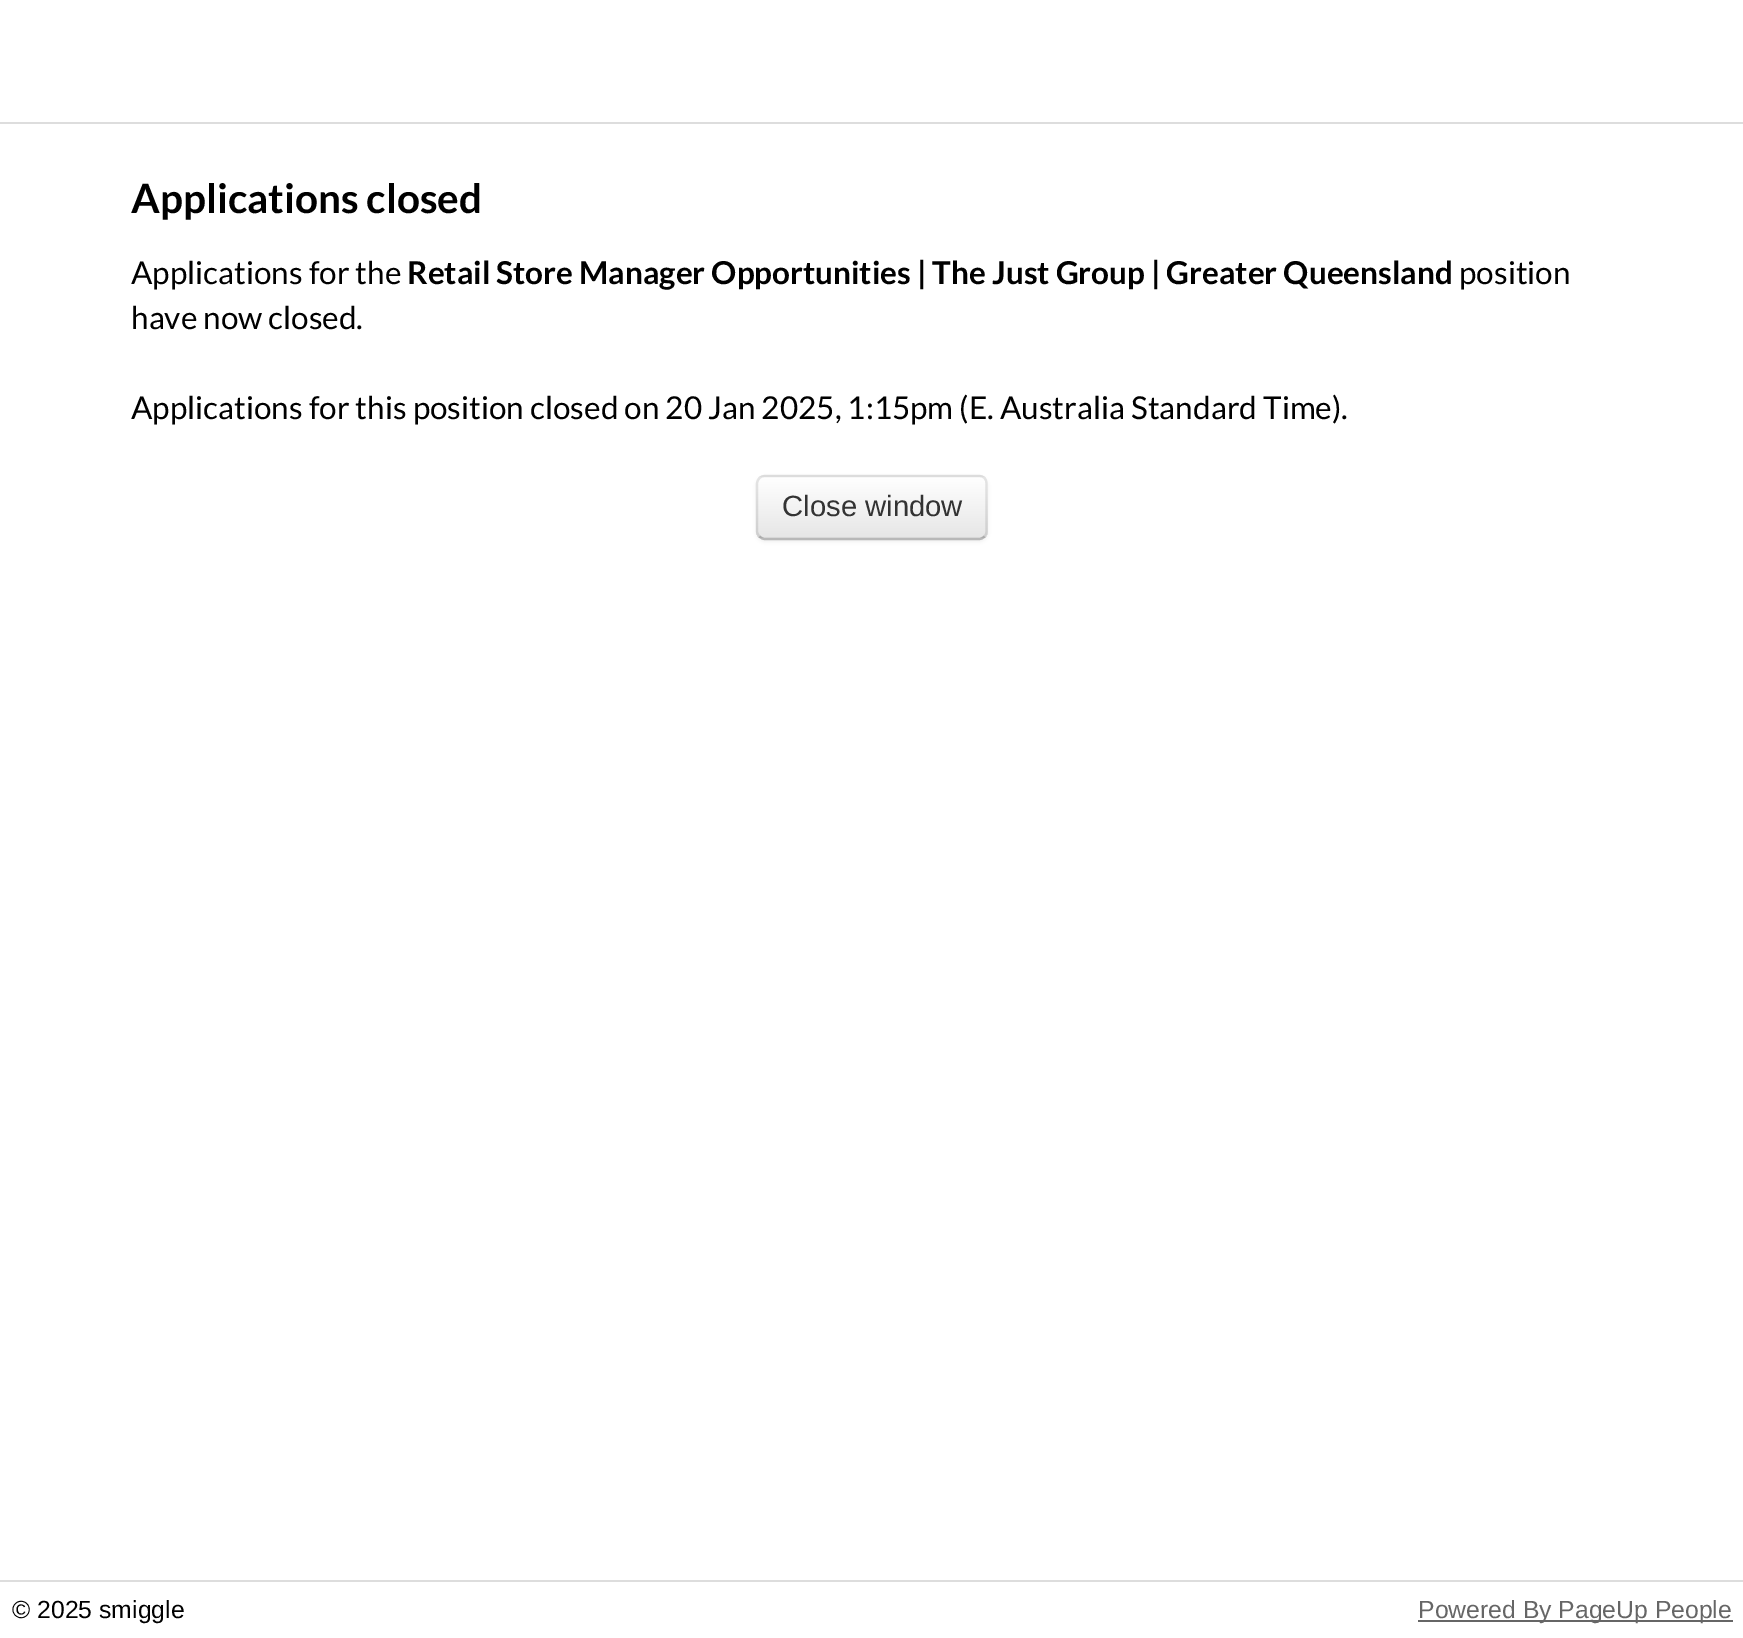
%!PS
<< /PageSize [1743 1638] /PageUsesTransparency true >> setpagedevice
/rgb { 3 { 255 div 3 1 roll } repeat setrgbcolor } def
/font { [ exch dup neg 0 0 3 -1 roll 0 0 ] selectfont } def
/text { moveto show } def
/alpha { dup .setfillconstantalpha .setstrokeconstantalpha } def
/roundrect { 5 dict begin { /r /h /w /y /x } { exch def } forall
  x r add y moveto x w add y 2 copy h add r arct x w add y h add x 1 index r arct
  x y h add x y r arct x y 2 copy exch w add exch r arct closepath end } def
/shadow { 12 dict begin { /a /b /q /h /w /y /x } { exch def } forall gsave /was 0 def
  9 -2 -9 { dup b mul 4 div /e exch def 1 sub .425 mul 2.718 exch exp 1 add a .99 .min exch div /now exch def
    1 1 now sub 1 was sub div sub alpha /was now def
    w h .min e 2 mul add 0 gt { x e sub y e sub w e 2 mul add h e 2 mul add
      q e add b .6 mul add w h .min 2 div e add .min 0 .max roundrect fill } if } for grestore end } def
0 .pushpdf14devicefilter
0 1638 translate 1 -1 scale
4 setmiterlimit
255 255 255 rgb
0 0 1743 1638 rectfill
221 221 221 rgb
0 122 1743 2 rectfill
0 0 0 rgb
756 477 232 65 9 2 0.05 shadow
245 245 245 rgb
756 475 232 65 9 roundrect fill
gsave
756 475 232 65 9 roundrect clip newpath
gsave 756 477 moveto 232 0 rlineto 0 61 rlineto -232 0 rlineto closepath clip newpath
<< /ShadingType 2 /ColorSpace /DeviceRGB /Coords [872 477 872 538] /Extend [true true] /Function << /FunctionType 2 /Domain [0 1] /C0 [1 1 1] /C1 [0.902 0.902 0.902] /N 1 >> >> shfill grestore
grestore
0.25 alpha
0 0 0 rgb
2.2 setlinewidth
984.5 536.5 moveto -1.5 1.5 -3.5 2.5 -5.5 2.5 rcurveto -214 0 rlineto -2 0 -4 -1 -5.5 -2.5 rcurveto stroke
0.1 alpha
759.5 536.5 moveto -1.5 -1.5 -2.5 -3.5 -2.5 -5.5 rcurveto 0 -47 rlineto 0 -2.5 1 -4.5 2.5 -6 rcurveto 1.5 -1.5 3.5 -2 5.5 -2 rcurveto 214 0 rlineto 2 0 4 0.5 5.5 2 rcurveto 1.5 1.5 2 3.5 2 6 rcurveto 0 47 rlineto 0 2 -0.5 4 -2 5.5 rcurveto stroke
1 alpha
221 221 221 rgb
0 1580 1743 2 rectfill
102 102 102 rgb
1418 1620 315 2 rectfill
/Lato-Bold 40.5 font
0 0 0 rgb
(Applications closed) 131 213 text
/Lato-Regular 31.5 font
(Applications for the) 131 284 text
/Lato-Bold 31.5 font
(Retail Store Manager Opportunities | The Just Group | Greater Queensland) 407 284 text
/Lato-Regular 31.5 font
(position) 1459 284 text
(have now closed.) 131 329 text
(Applications for this position closed on 20 Jan 2025, 1:15pm \(E. Australia Standard Time\).) 131 419 text
/LiberationSans-Regular 29.25 font
51 51 51 rgb
(Close window) 782 516 text
/LiberationSans-Regular 24.75 font
0 0 0 rgb
(© 2025 smiggle) 12 1618 text
102 102 102 rgb
(Powered By PageUp People) 1418 1618 text
.poppdf14devicefilter showpage
